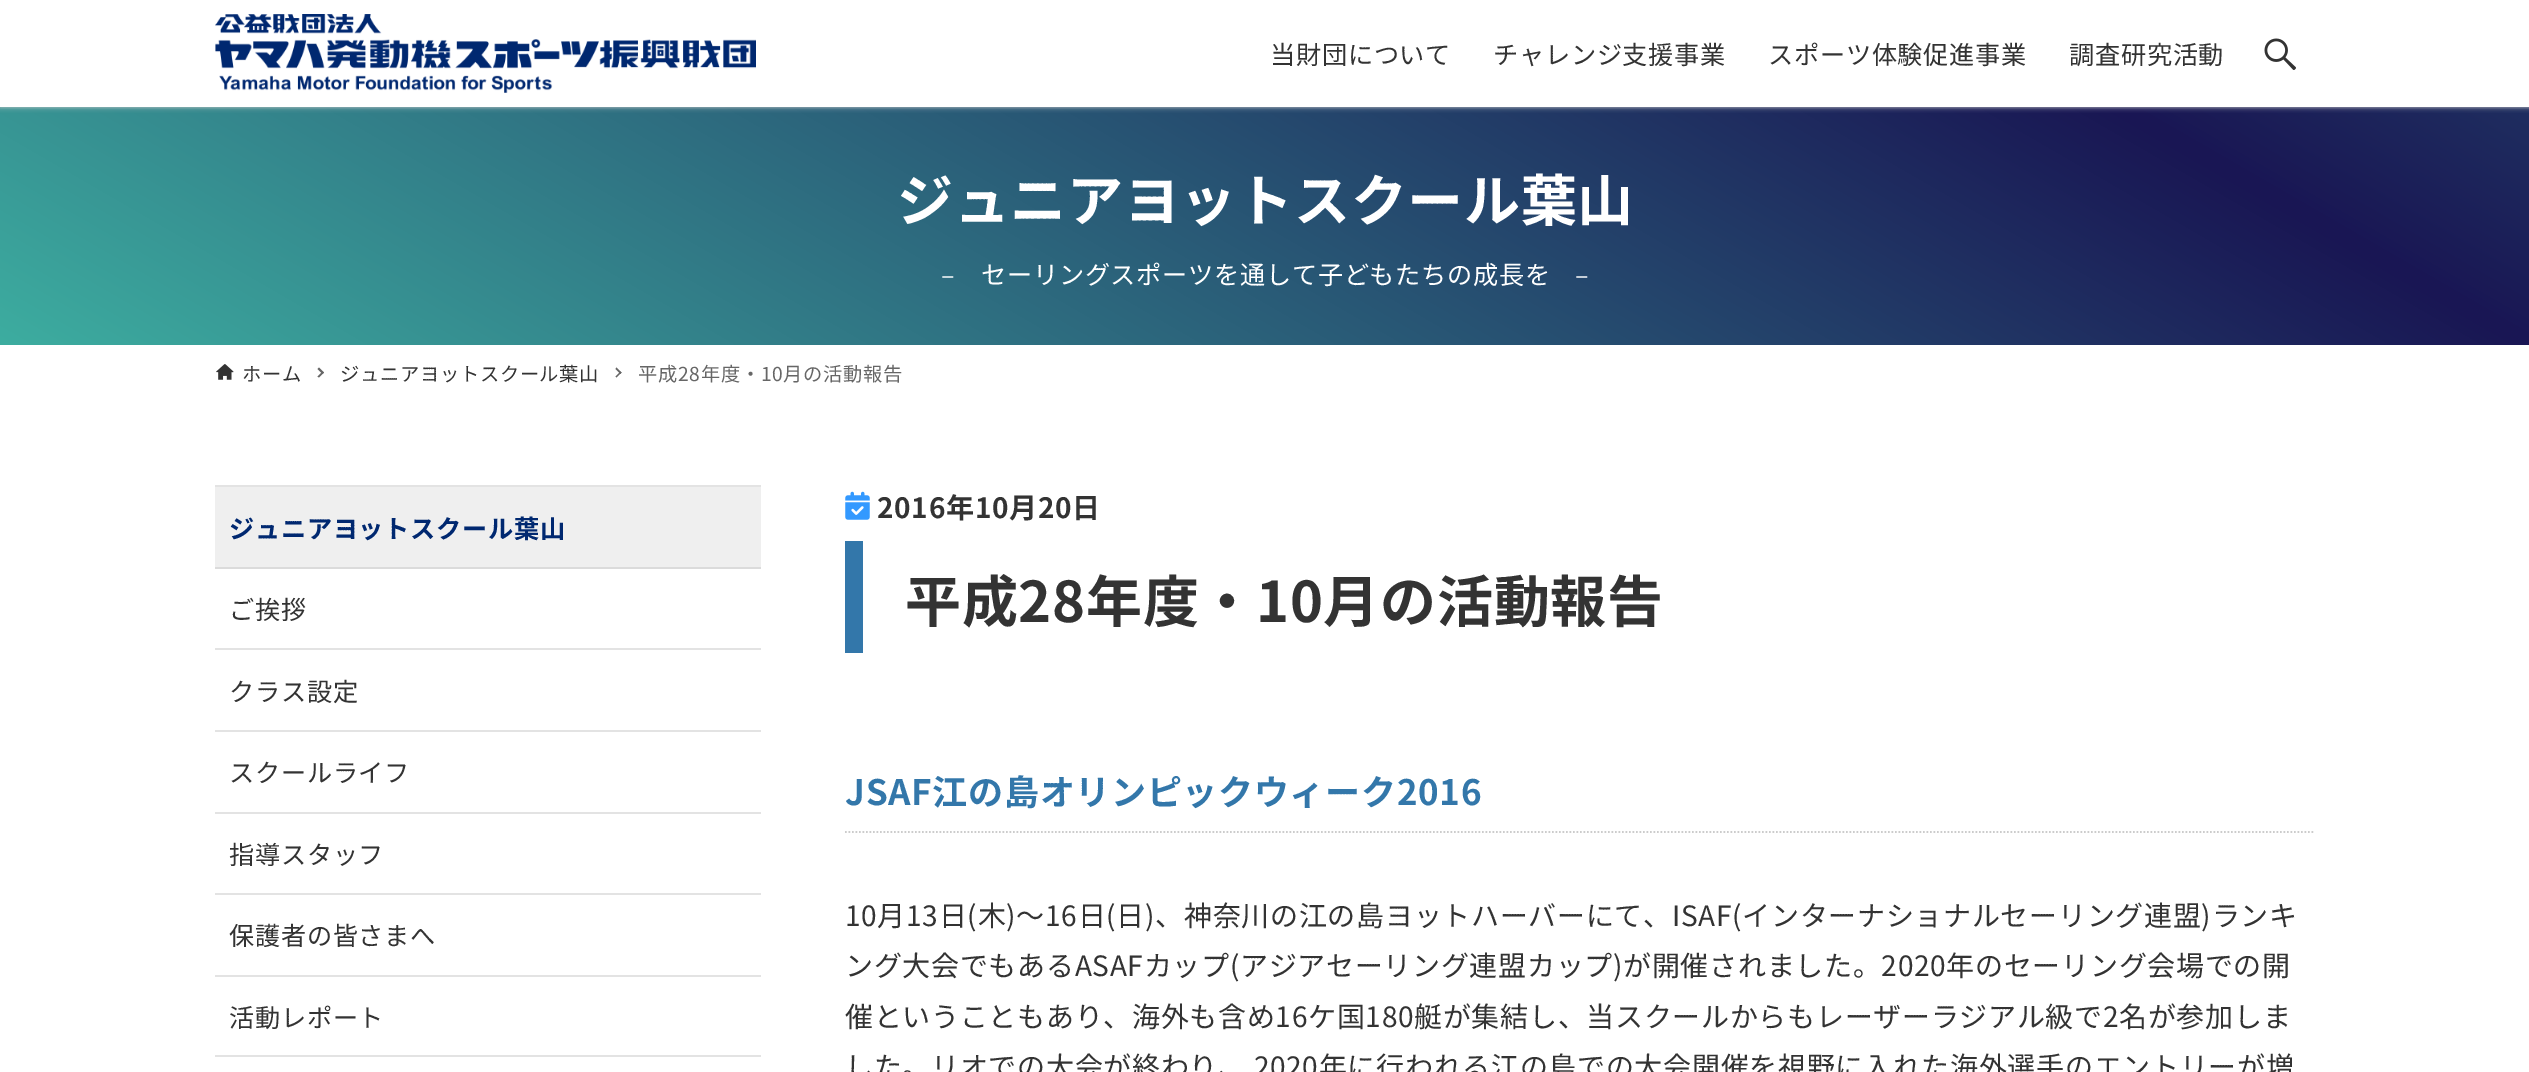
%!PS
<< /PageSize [2529 1072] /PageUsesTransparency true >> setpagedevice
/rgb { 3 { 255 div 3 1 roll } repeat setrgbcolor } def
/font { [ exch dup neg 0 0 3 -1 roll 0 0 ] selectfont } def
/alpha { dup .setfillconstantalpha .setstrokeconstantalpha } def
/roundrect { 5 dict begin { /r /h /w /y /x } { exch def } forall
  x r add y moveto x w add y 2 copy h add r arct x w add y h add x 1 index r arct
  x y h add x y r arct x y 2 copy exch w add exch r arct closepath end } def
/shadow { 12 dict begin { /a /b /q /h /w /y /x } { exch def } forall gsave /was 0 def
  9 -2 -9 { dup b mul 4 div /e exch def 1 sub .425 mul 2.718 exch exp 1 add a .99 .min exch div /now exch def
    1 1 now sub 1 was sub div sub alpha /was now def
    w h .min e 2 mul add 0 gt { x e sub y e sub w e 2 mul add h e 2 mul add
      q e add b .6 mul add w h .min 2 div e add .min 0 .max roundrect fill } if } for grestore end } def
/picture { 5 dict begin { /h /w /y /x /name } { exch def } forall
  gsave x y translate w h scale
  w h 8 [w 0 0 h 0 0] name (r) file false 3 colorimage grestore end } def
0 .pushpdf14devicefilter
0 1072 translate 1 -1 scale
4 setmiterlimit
255 255 255 rgb
0 0 2529 1072 rectfill
gsave 0 107 moveto 2529 0 rlineto 0 238 rlineto -2529 0 rlineto closepath clip newpath
<< /ShadingType 2 /ColorSpace /DeviceRGB /Coords [1795 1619 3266 -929] /Extend [true true] /Function << /FunctionType 3 /Domain [0 1] /Functions [<< /FunctionType 2 /Domain [0 1] /C0 [0.263 0.776 0.675] /C1 [0.098 0.086 0.329] /N 1 >> << /FunctionType 2 /Domain [0 1] /C0 [0.098 0.086 0.329] /C1 [0.263 0.776 0.675] /N 1 >>] /Bounds [0.5] /Encode [0 1 0 1] >> >> shfill grestore
204 204 204 rgb
0 0 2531 107 0 2.5 1 shadow
255 255 255 rgb
0 0 2529 107 rectfill
(img_01.rgb) 215 14 541 79 picture
(img_02.rgb) 2264 38 32 32 picture
(img_03.rgb) 216 364 18 16 picture
102 102 102 rgb
319 367.5 moveto 5 5 rlineto -1.5 1.5 rlineto -5 -5 rlineto closepath fill
322.5 371.5 moveto 1.5 1 rlineto -5 5 rlineto -1.5 -1 rlineto closepath fill
616.5 367.5 moveto 5 5 rlineto -1 1.5 rlineto -5 -5 rlineto closepath fill
620.5 371.5 moveto 1 1 rlineto -5 5 rlineto -1 -1 rlineto closepath fill
227 227 227 rgb
215 485 546 2 rectfill
239 239 239 rgb
215 487 546 80 rectfill
219 219 219 rgb
215 567 546 2 rectfill
227 227 227 rgb
215 648 546 2 rectfill
215 730 546 2 rectfill
215 812 546 2 rectfill
215 893 546 2 rectfill
215 975 546 2 rectfill
215 1055 546 2 rectfill
(img_04.rgb) 845 491 25 29 picture
51 119 170 rgb
845 541 18 112 rectfill
204 204 204 rgb
1.8 setlinewidth
[1.75 1.75] 0 setdash
845 832 moveto 1470 0 rlineto stroke
/NotoSansJP-Regular 25.2 font
51 51 51 rgb
1270 64 moveto 0.7 0 (当財団について) ashow
1493 64 moveto 0.7 0 (チャレンジ支援事業) ashow
1768 64 moveto 0.7 0 (スポーツ体験促進事業) ashow
2069 64 moveto 0.7 0 (調査研究活動) ashow
/NotoSansJP-Bold 56 font
255 255 255 rgb
897 221 moveto 0.7 0 (ジュニアヨットスクール葉山) ashow
/NotoSansJP-Regular 25.2 font
941 284 moveto 0.7 0 (–) ashow
981 284 moveto 0.7 0 (セーリングスポーツを通して子どもたちの成長を) ashow
1575 284 moveto 0.7 0 (–) ashow
/NotoSansJP-Regular 19.25 font
51 51 51 rgb
242 381 moveto 0.7 0 (ホーム) ashow
340 381 moveto 0.7 0 (ジュニアヨットスクール葉山) ashow
102 102 102 rgb
638 381 moveto 0.7 0 (平成28年度・10月の活動報告) ashow
/NotoSansJP-Bold 25.2 font
0 40 112 rgb
229 538 moveto 0.7 0 (ジュニアヨットスクール葉山) ashow
/NotoSansJP-Regular 25.2 font
51 51 51 rgb
229 619 moveto 0.7 0 (ご挨拶) ashow
229 701 moveto 0.7 0 (クラス設定) ashow
229 782 moveto 0.7 0 (スクールライフ) ashow
229 864 moveto 0.7 0 (指導スタッフ) ashow
229 945 moveto 0.7 0 (保護者の皆さまへ) ashow
229 1027 moveto 0.7 0 (活動レポート) ashow
/NotoSansJP-Bold 28 font
877 518 moveto 0.7 0 (2016年10月20日) ashow
/NotoSansJP-Bold 56 font
905 622 moveto 0.7 0 (平成28年度・10月の活動報告) ashow
/NotoSansJP-Bold 35 font
51 119 170 rgb
845 805 moveto 0.7 0 (JSAF江の島オリンピックウィーク2016) ashow
/NotoSansJP-Regular 28 font
51 51 51 rgb
845 926 moveto 0.7 0 (10月13日\(木\)〜16日\(日\)、神奈川の江の島ヨットハーバーにて、ISAF\(インターナショナルセーリング連盟\)ランキ) ashow
845 976 moveto 0.7 0 (ング大会でもあるASAFカップ\(アジアセーリング連盟カップ\)が開催されました。2020年のセーリング会場での開) ashow
845 1027 moveto 0.7 0 (催ということもあり、海外も含め16ケ国180艇が集結し、当スクールからもレーザーラジアル級で2名が参加しま) ashow
845 1077 moveto 0.7 0 (した。リオでの大会が終わり、 2020年に行われる江の島での大会開催を視野に入れた海外選手のエントリーが増) ashow
.poppdf14devicefilter showpage
